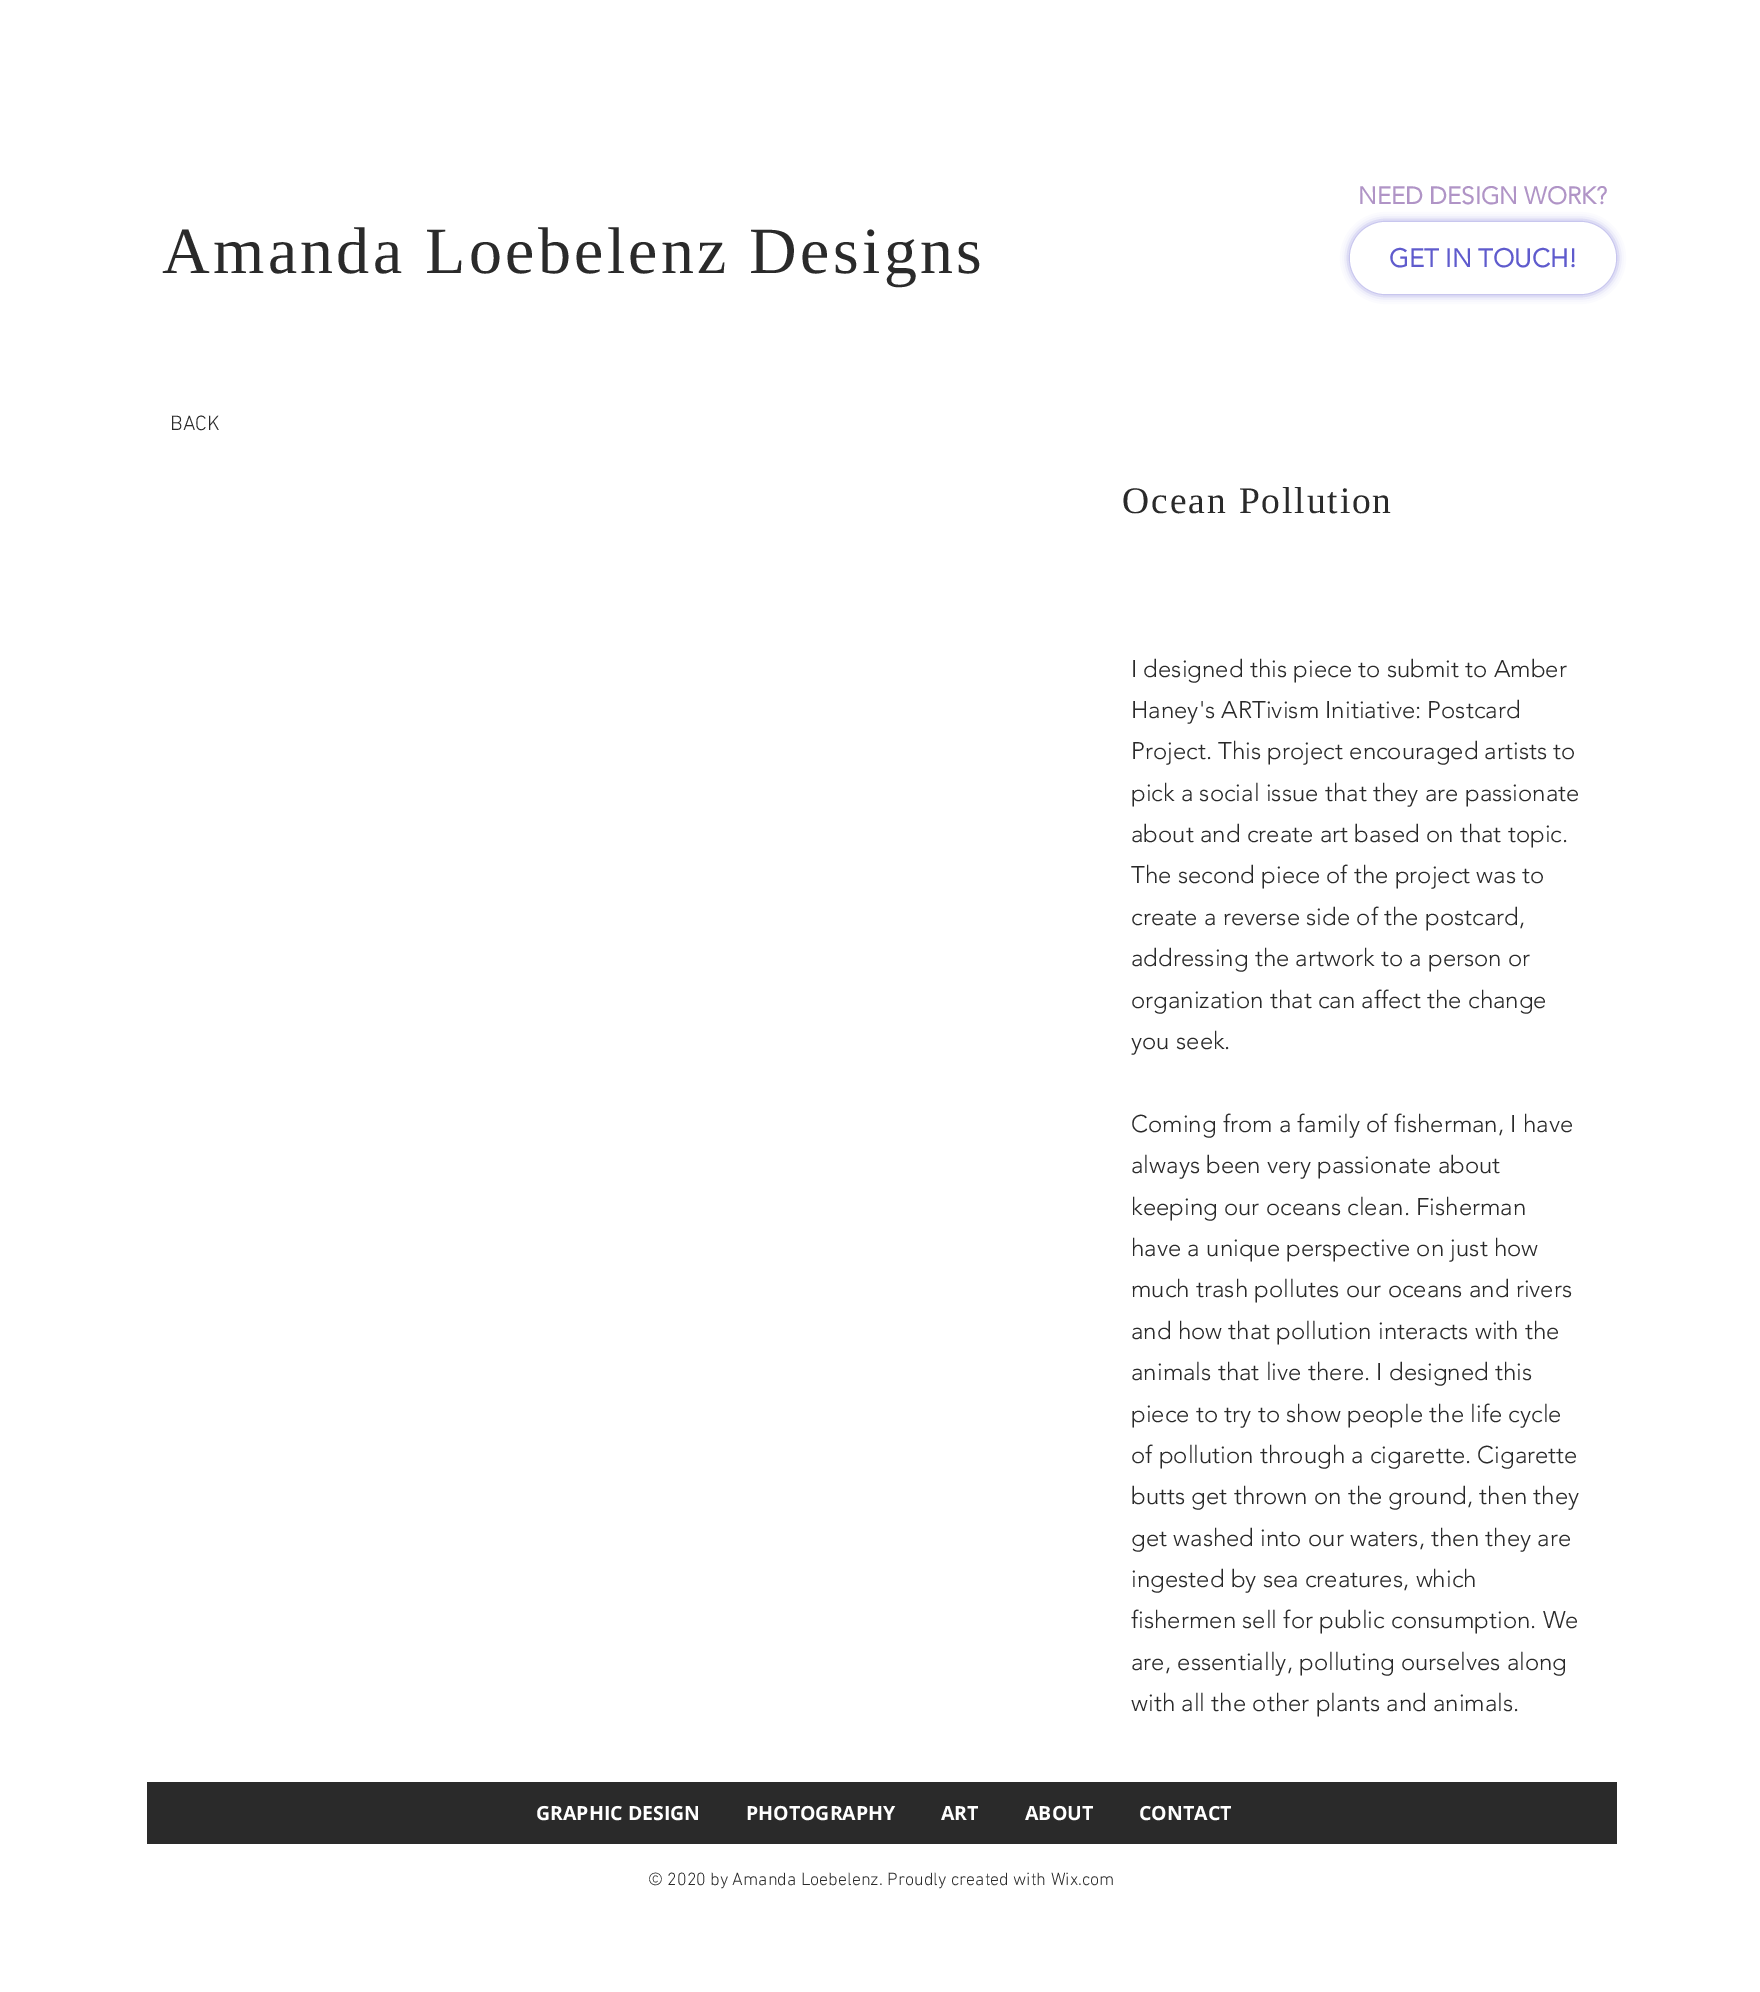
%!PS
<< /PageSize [1760 1992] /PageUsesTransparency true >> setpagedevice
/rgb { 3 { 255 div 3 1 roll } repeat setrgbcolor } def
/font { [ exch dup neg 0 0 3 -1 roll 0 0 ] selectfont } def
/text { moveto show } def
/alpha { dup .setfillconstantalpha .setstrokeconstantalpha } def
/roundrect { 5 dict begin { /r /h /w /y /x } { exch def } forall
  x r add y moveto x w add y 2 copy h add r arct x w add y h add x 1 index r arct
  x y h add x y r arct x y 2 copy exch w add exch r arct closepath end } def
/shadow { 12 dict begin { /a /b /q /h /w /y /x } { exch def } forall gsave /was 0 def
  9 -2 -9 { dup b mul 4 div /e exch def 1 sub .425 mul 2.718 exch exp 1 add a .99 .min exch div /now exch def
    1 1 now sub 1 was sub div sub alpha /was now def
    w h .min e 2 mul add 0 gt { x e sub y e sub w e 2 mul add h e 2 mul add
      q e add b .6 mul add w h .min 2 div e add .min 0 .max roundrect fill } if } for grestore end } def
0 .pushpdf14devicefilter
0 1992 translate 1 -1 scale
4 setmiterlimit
255 255 255 rgb
0 0 1760 1992 rectfill
95 91 205 rgb
1350 222 266 72 36 4.5 0.7 shadow
255 255 255 rgb
1350 222 266 72 36 roundrect fill
42 42 42 rgb
147 1782 1470 62 rectfill
/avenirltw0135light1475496-Bold 24 font
176 148 198 rgb
(NEED DESIGN WORK?) 1358 204 text
/LiberationSerif-Regular 66 font
42 42 42 rgb
162 273 moveto 3.3 0 (Amanda Loebelenz Designs) ashow
/avenirltw0135light1475496-Bold 25.5 font
95 91 205 rgb
(GET IN TOUCH!) 1389 267 text
/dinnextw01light-Light 21 font
42 42 42 rgb
(BACK) 170 430 text
/LiberationSerif-Regular 37.5 font
1122 513 moveto 1.9 0 (Ocean Pollution) ashow
/avenirltw0135light1475496-Light 24 font
(I designed this piece to submit to Amber) 1131 677 text
(Haney's ARTivism Initiative: Postcard) 1131 718 text
(Project. This project encouraged artists to) 1131 759 text
(pick a social issue that they are passionate) 1131 801 text
(about and create art based on that topic.) 1131 842 text
(The second piece of the project was to) 1131 883 text
(create a reverse side of the postcard,) 1131 925 text
(addressing the artwork to a person or) 1131 966 text
(organization that can affect the change) 1131 1008 text
(you seek.) 1131 1049 text
(Coming from a family of fisherman, I have) 1131 1132 text
(always been very passionate about) 1131 1173 text
(keeping our oceans clean. Fisherman) 1131 1215 text
(have a unique perspective on just how) 1131 1256 text
(much trash pollutes our oceans and rivers) 1131 1297 text
(and how that pollution interacts with the) 1131 1339 text
(animals that live there. I designed this) 1131 1380 text
(piece to try to show people the life cycle) 1131 1422 text
(of pollution through a cigarette. Cigarette) 1131 1463 text
(butts get thrown on the ground, then they) 1131 1504 text
(get washed into our waters, then they are) 1131 1546 text
(ingested by sea creatures, which) 1131 1587 text
(fishermen sell for public consumption. We) 1131 1628 text
(are, essentially, polluting ourselves along) 1131 1670 text
(with all the other plants and animals.) 1131 1711 text
/OpenSans-Bold 19.5 font
255 255 255 rgb
(GRAPHIC DESIGN) 536 1820 text
(PHOTOGRAPHY) 746 1820 text
(ART) 941 1820 text
(ABOUT) 1025 1820 text
(CONTACT) 1139 1820 text
/dinnextw01light-Light 18 font
42 42 42 rgb
(© 2020 by Amanda Loebelenz. Proudly created with Wix.com) 648 1885 text
.poppdf14devicefilter showpage
